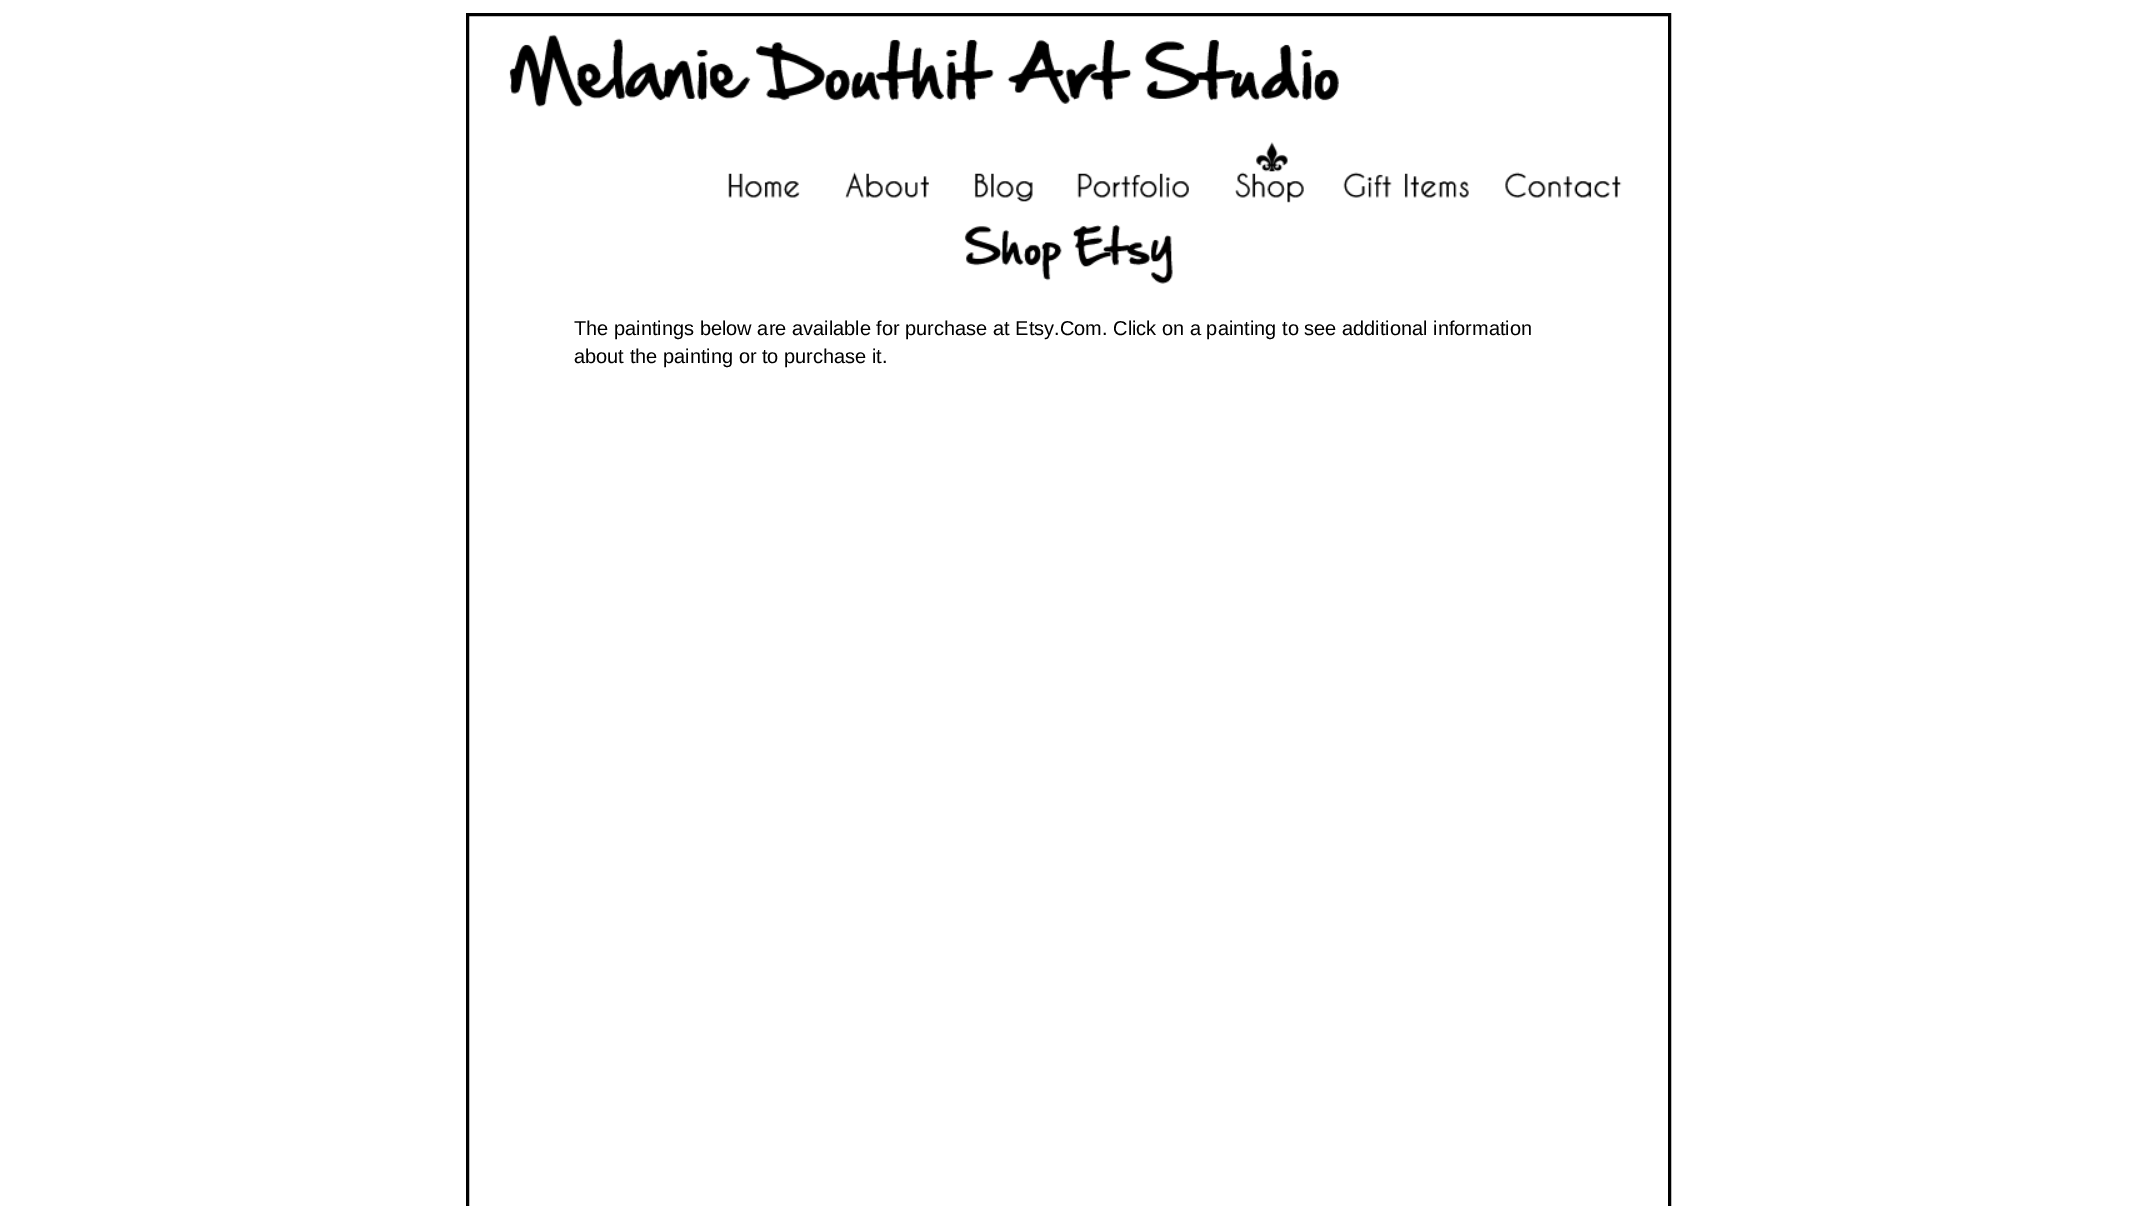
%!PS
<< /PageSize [2136 1206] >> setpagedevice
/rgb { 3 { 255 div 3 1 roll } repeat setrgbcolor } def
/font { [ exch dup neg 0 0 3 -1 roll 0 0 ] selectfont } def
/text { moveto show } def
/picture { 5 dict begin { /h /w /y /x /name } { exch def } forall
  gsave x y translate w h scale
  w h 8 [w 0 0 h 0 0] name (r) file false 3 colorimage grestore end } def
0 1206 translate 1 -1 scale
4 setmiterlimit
255 255 255 rgb
0 0 2136 1206 rectfill
0 0 0 rgb
3 setlinewidth
467.5 14.5 1202 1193 rectstroke
(img_01.rgb) 509 34 830 73 picture
(img_02.rgb) 728 173 72 25 picture
(img_03.rgb) 845 172 84 26 picture
(img_04.rgb) 974 173 59 29 picture
(img_05.rgb) 1077 173 112 25 picture
(img_06.rgb) 1235 142 69 61 picture
(img_07.rgb) 1343 172 126 26 picture
(img_08.rgb) 1505 172 117 26 picture
(img_09.rgb) 964 224 209 60 picture
/LiberationSans-Regular 20 font
(The paintings below are available for purchase at Etsy.Com. Click on a painting to see additional information) 574 335 text
(about the painting or to purchase it.) 574 363 text
showpage
